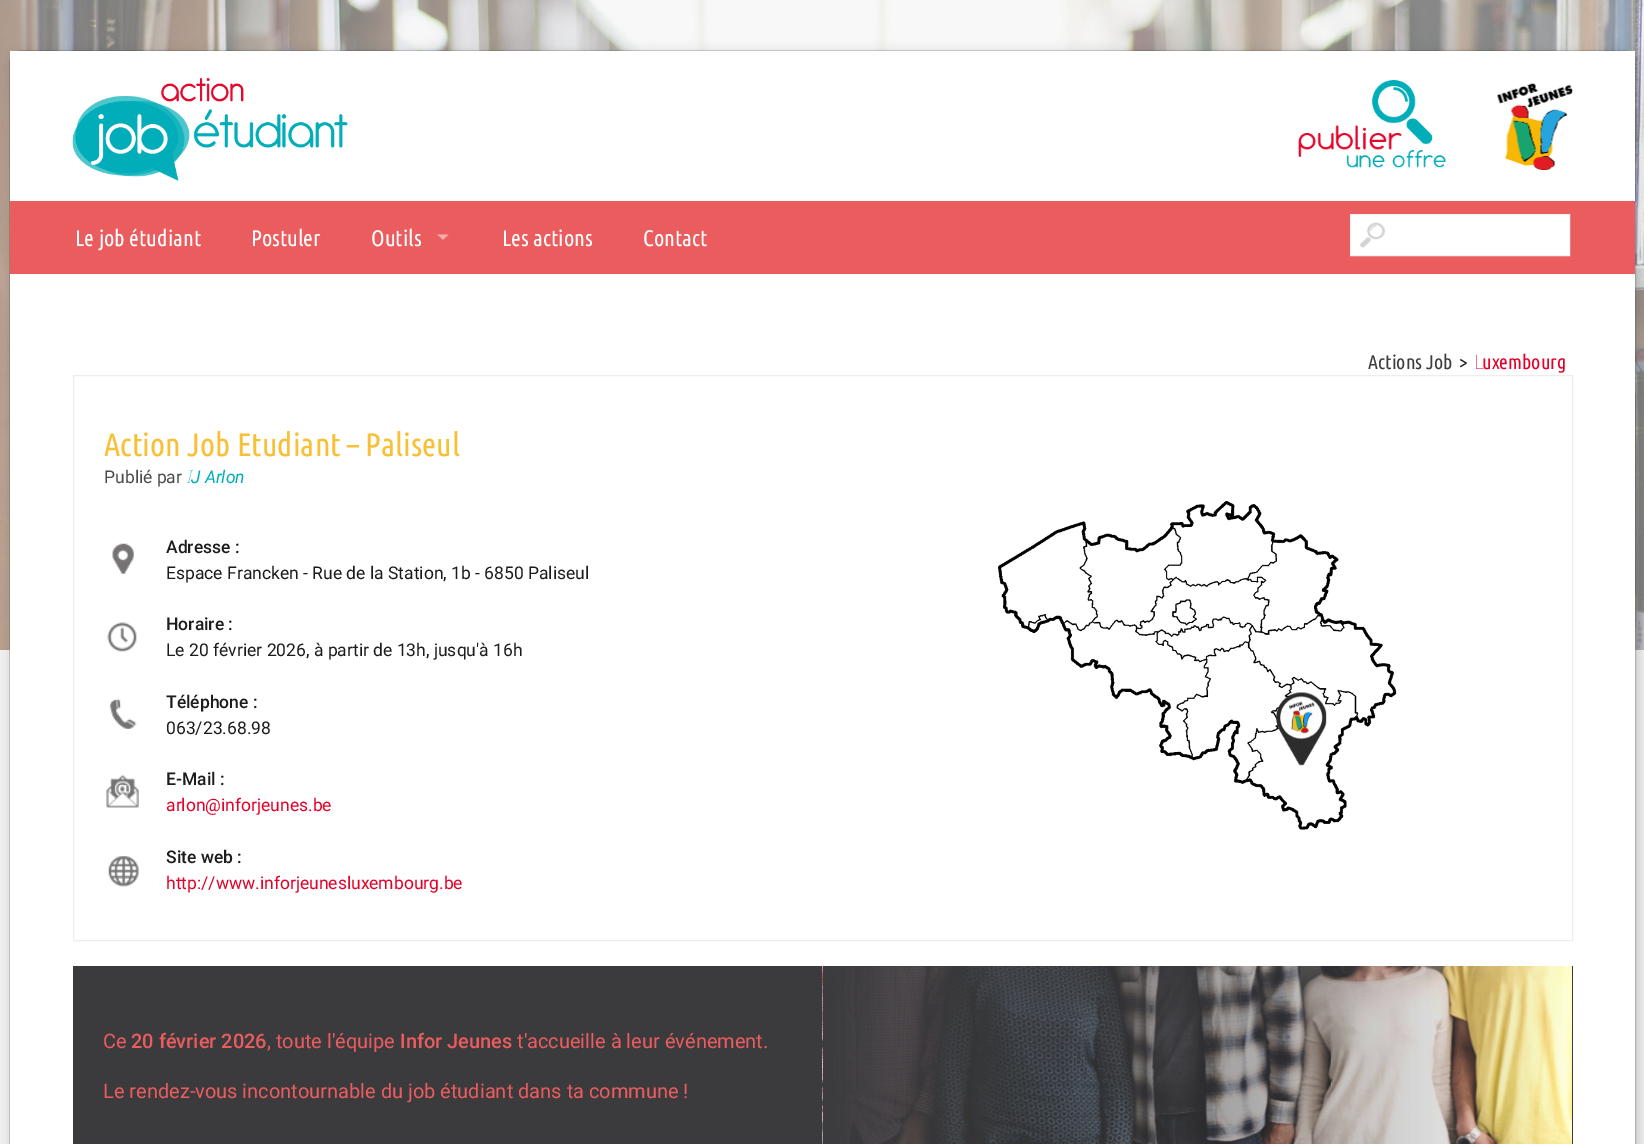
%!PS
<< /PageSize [1644 1144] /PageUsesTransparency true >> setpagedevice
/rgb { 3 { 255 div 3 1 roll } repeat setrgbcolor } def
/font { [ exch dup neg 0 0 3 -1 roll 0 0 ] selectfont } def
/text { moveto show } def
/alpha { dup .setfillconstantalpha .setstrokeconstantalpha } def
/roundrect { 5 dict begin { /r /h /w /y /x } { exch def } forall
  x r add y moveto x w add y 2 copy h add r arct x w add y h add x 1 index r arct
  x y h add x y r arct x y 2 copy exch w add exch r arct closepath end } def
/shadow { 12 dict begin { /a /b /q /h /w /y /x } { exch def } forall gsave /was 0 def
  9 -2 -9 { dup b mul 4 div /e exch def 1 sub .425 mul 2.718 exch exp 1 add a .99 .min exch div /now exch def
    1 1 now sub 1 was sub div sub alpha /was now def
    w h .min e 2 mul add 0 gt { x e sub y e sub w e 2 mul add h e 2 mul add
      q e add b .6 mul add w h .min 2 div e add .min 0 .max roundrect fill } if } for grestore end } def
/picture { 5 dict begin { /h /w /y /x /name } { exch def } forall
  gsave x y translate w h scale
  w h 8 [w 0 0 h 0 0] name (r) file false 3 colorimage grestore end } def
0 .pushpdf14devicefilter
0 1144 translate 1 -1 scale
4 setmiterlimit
242 242 242 rgb
0 0 1644 1144 rectfill
(img_01.rgb) 0 0 1644 650 picture
45 45 45 rgb
11 53 1628 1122 13 6 0.2 shadow
0.2 alpha
9.5 50.5 1626 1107 12.5 roundrect stroke
1 alpha
255 255 255 rgb
10 51 1625 150 rectfill
(img_02.rgb) 72 78 276 103 picture
(img_03.rgb) 1298 80 148 88 picture
(img_04.rgb) 1497 83 76 87 picture
235 92 95 rgb
10 201 1625 73 rectfill
(img_05.rgb) 437 234 12 6 picture
255 255 255 rgb
1351 215 218 40 rectfill
(img_06.rgb) 1360 222 25 26 picture
244 244 244 rgb
1350.5 214.5 219 41 rectstroke
255 255 255 rgb
10 274 1625 870 rectfill
237 237 237 rgb
73.5 375.5 1499 565 rectstroke
(img_07.rgb) 112 543 22 31 picture
(img_08.rgb) 107 622 30 30 picture
(img_09.rgb) 109 698 28 32 picture
(img_10.rgb) 106 775 33 33 picture
(img_11.rgb) 108 856 31 31 picture
(img_12.rgb) 998 501 399 329 picture
(img_13.rgb) 1276 692 51 74 picture
59 59 61 rgb
73 966 1500 178 rectfill
(img_14.rgb) 822 966 750 178 picture
/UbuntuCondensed-Regular 22.5 font
255 255 255 rgb
(Le job étudiant) 75 246 text
(Postuler) 251 246 text
(Outils) 371 246 text
(Les actions) 502 246 text
(Contact) 643 246 text
/UbuntuCondensed-Regular 20 font
61 61 59 rgb
(Actions Job) 1368 369 text
28 28 28 rgb
(>) 1459 369 text
/NotoSans-Thin 20 font
226 1 41 rgb
(L) 1474 369 text
/UbuntuCondensed-Regular 20 font
(uxembourg) 1482 369 text
/UbuntuCondensed-Regular 32.5 font
248 192 55 rgb
(Action Job Etudiant – Paliseul) 104 456 text
/Roboto-Regular 17.5 font
76 76 75 rgb
(Publié par) 104 483 text
/NotoSans-ThinItalic 17.5 font
0 174 185 rgb
(I) 186 483 text
/Roboto-Italic 17.5 font
(J Arlon) 191 483 text
/Roboto-Medium 17.5 font
28 28 28 rgb
(Adresse :) 166 553 text
/Roboto-Regular 17.5 font
(Espace Francken - Rue de la Station, 1b - 6850 Paliseul) 166 579 text
/Roboto-Medium 17.5 font
(Horaire :) 166 630 text
/Roboto-Regular 17.5 font
(Le 20 février 2026, à partir de 13h, jusqu'à 16h) 166 656 text
/Roboto-Medium 17.5 font
(Téléphone :) 166 708 text
/Roboto-Regular 17.5 font
(063/23.68.98) 166 734 text
/Roboto-Medium 17.5 font
(E-Mail :) 166 785 text
/Roboto-Regular 17.5 font
226 1 41 rgb
(arlon@inforjeunes.be) 166 811 text
/Roboto-Medium 17.5 font
28 28 28 rgb
(Site web :) 166 863 text
/Roboto-Regular 17.5 font
226 1 41 rgb
(http://www.inforjeunesluxembourg.be) 166 889 text
/Roboto-Regular 20 font
235 92 95 rgb
(Ce) 103 1048 text
/Roboto-Medium 20 font
(20 février 2026) 131 1048 text
/Roboto-Regular 20 font
(, toute l'équipe) 267 1048 text
/Roboto-Medium 20 font
(Infor Jeunes) 400 1048 text
/Roboto-Regular 20 font
(t'accueille à leur événement.) 517 1048 text
(Le rendez-vous incontournable du job étudiant dans ta commune !) 103 1098 text
.poppdf14devicefilter showpage
